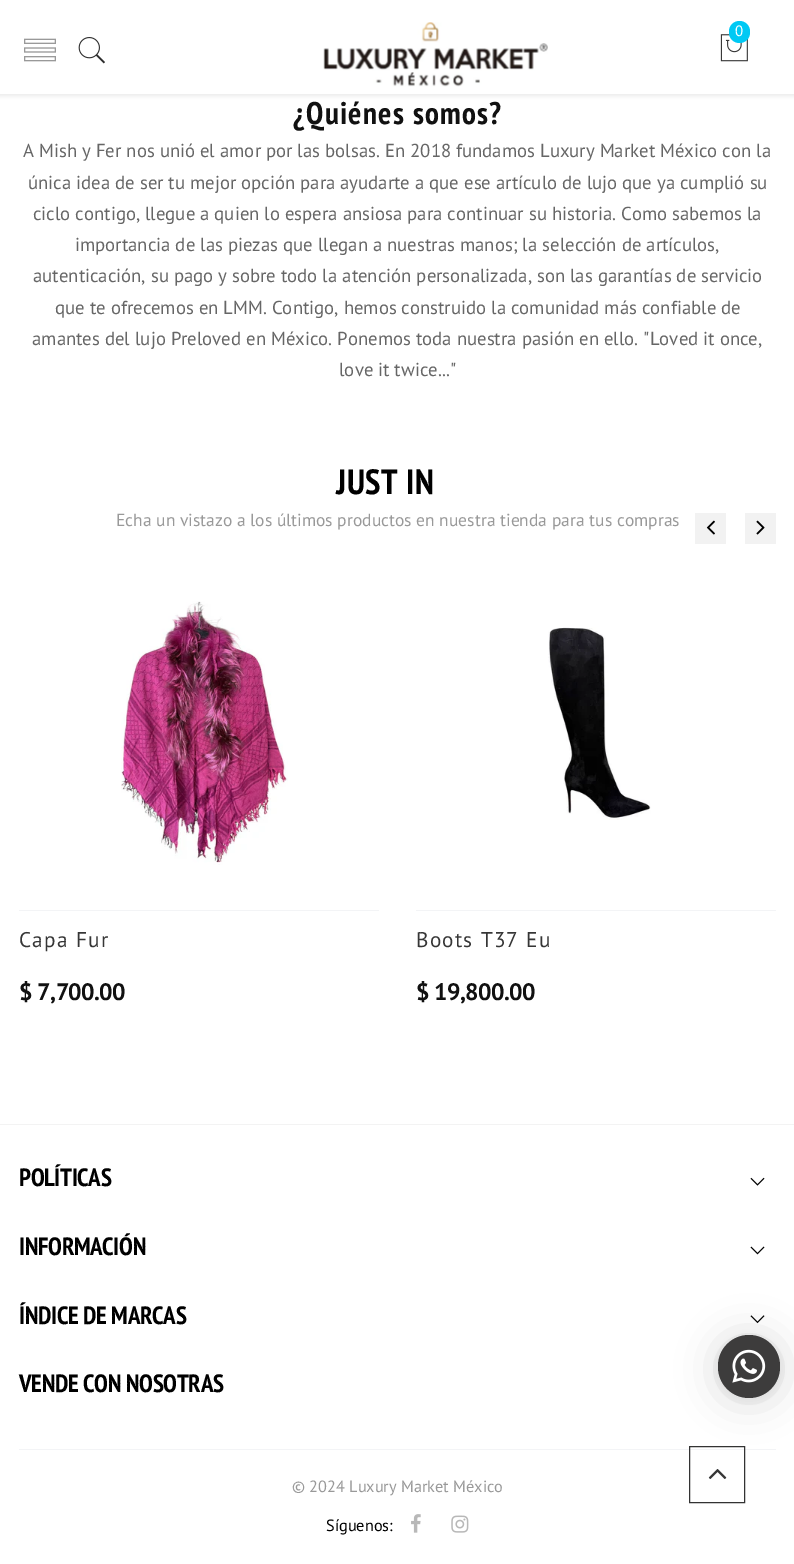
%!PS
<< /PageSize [794 1564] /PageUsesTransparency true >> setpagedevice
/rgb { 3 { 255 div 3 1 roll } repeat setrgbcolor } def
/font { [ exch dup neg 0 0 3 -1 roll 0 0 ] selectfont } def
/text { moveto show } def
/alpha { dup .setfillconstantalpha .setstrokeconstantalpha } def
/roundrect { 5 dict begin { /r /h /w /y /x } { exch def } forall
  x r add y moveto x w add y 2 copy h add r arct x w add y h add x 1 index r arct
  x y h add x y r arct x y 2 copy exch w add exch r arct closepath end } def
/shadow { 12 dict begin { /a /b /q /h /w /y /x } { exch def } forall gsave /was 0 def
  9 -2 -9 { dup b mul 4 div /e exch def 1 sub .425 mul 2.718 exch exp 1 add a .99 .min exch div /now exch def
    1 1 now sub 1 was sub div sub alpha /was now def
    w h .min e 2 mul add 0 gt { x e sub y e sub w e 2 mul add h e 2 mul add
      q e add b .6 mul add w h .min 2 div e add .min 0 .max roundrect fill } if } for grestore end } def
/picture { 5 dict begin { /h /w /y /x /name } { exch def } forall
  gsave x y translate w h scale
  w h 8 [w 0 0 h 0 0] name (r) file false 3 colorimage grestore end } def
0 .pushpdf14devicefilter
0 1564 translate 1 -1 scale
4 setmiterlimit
255 255 255 rgb
0 0 794 1564 rectfill
234 234 234 rgb
-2 -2 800 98 0 2 1 shadow
255 255 255 rgb
0 0 794 94 rectfill
(img_01.rgb) 323 22 225 65 picture
(img_02.rgb) 720 34 28 28 picture
0 201 244 rgb
729 21 21 22 10.5 roundrect fill
(img_03.rgb) 78 37 27 27 picture
(img_04.rgb) 24 38 32 24 picture
242 242 242 rgb
695 513 31 31 rectfill
(img_05.rgb) 706 520 9 15 picture
745 513 31 31 rectfill
(img_06.rgb) 756 520 9 15 picture
(img_07.rgb) 121 601 167 264 picture
243 244 246 rgb
19 910 360 1 rectfill
(img_08.rgb) 548 627 103 193 picture
416 910 360 1 rectfill
243 243 243 rgb
0 1124 794 1 rectfill
(img_09.rgb) 750 1177 15 9 picture
(img_10.rgb) 750 1246 15 9 picture
(img_11.rgb) 750 1315 15 9 picture
243 244 246 rgb
19 1449 757 1 rectfill
(img_12.rgb) 411 1514 10 19 picture
(img_13.rgb) 451 1515 18 18 picture
51 51 51 rgb
689.5 1446.5 55 56 rectstroke
(img_14.rgb) 708 1469 19 10 picture
0 0 0 rgb
718 1338 62 62 31 20 0.16 shadow
718 1336 62 63 31 4 0.06 shadow
61 60 60 rgb
718 1335 62 63 31 roundrect fill
(img_15.rgb) 732 1349 34 34 picture
/PTSans-Regular 15 font
255 255 255 rgb
(0) 735 36 text
/PTSansNarrow-Bold 31.25 font
17 17 17 rgb
293 124 moveto 1.25 0 (¿Quiénes somos?) ashow
/PTSans-Regular 18.75 font
102 102 102 rgb
(A Mish y Fer nos unió el amor por las bolsas. En 2018 fundamos Luxury Market México con la) 23 157 text
(única idea de ser tu mejor opción para ayudarte a que ese artículo de lujo que ya cumplió su) 28 189 text
(ciclo contigo, llegue a quien lo espera ansiosa para continuar su historia. Como sabemos la) 33 220 text
(importancia de las piezas que llegan a nuestras manos; la selección de artículos,) 75 251 text
(autenticación, su pago y sobre todo la atención personalizada, son las garantías de servicio) 33 282 text
(que te ofrecemos en LMM. Contigo, hemos construido la comunidad más confiable de) 55 314 text
(amantes del lujo Preloved en México. Ponemos toda nuestra pasión en ello. "Loved it once,) 32 345 text
(love it twice...") 339 376 text
/PTSansNarrow-Bold 35 font
0 0 0 rgb
336 494 moveto 0.5 0 (JUST IN) ashow
/PTSans-Regular 17.5 font
153 153 153 rgb
(Echa un vistazo a los últimos productos en nuestra tienda para tus compras) 116 526 text
/PTSans-Regular 21.25 font
54 54 54 rgb
19 947 moveto 1.25 0 (Capa Fur) ashow
/PTSans-Bold 23.75 font
17 17 17 rgb
19 1000 moveto -0.6 0 ($ 7,700.00) ashow
/PTSans-Regular 21.25 font
54 54 54 rgb
416 947 moveto 1.25 0 (Boots T37 Eu) ashow
/PTSans-Bold 23.75 font
17 17 17 rgb
416 1000 moveto -0.6 0 ($ 19,800.00) ashow
/PTSansNarrow-Bold 25 font
0 0 0 rgb
19 1186 moveto -0.3 0 (POLÍTICAS) ashow
19 1255 moveto -0.3 0 (INFORMACIÓN) ashow
19 1324 moveto -0.3 0 (ÍNDICE DE MARCAS) ashow
19 1392 moveto -0.3 0 (VENDE CON NOSOTRAS) ashow
/PTSans-Regular 16.25 font
153 153 153 rgb
(© 2024 Luxury Market México) 292 1492 text
0 0 0 rgb
(Síguenos:) 326 1531 text
.poppdf14devicefilter showpage
